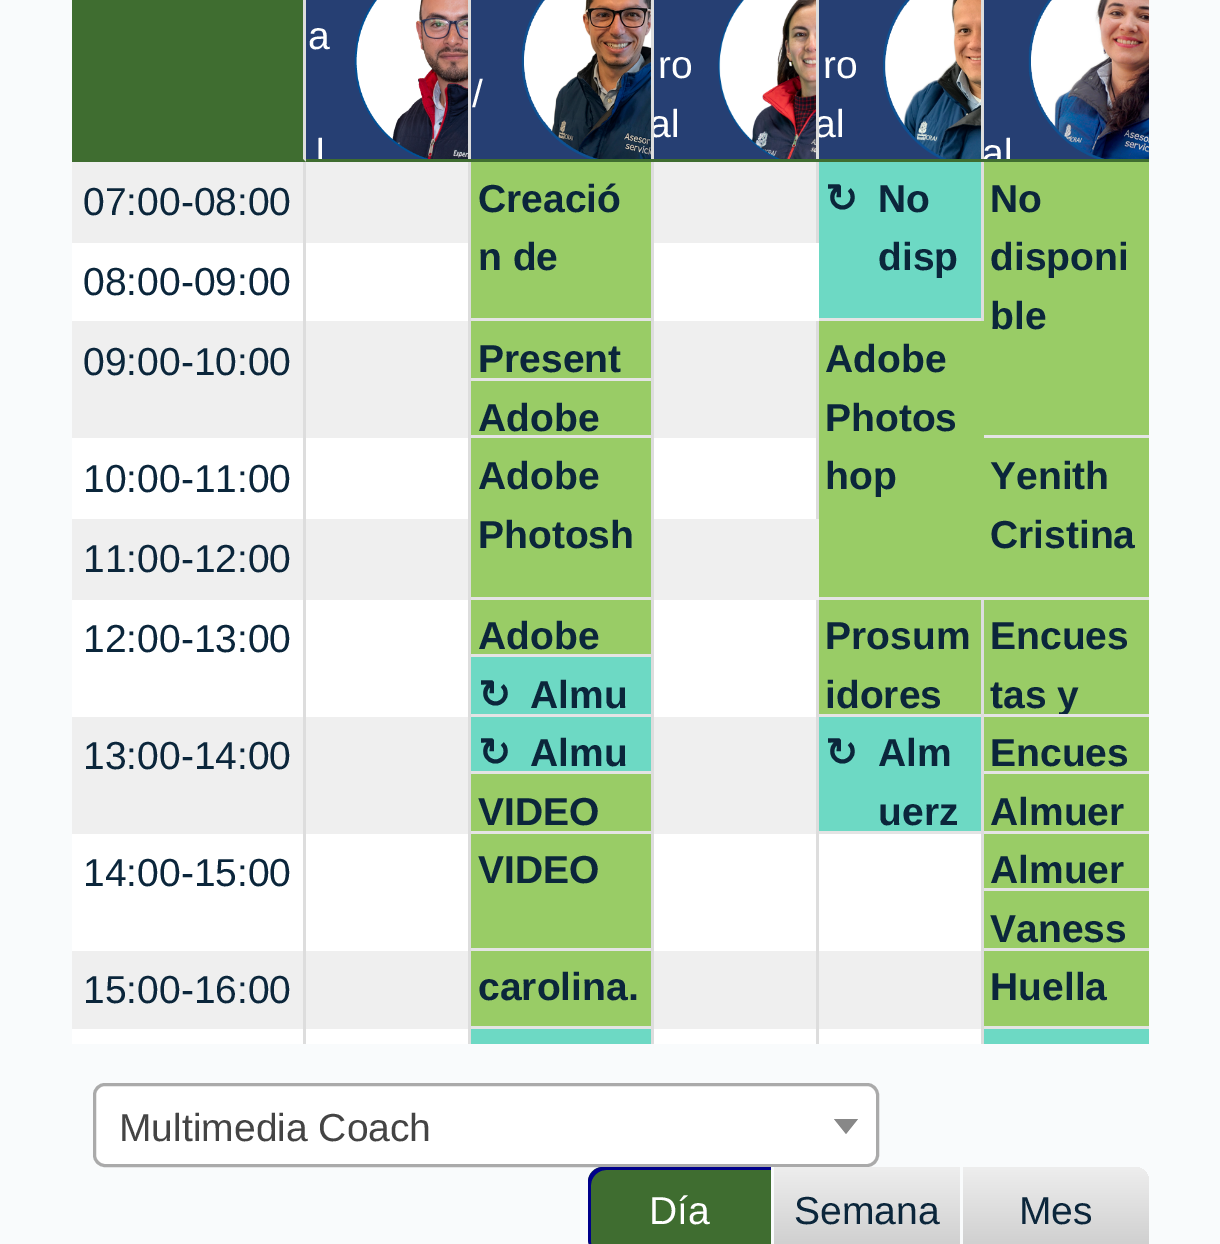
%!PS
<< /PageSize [1220 1244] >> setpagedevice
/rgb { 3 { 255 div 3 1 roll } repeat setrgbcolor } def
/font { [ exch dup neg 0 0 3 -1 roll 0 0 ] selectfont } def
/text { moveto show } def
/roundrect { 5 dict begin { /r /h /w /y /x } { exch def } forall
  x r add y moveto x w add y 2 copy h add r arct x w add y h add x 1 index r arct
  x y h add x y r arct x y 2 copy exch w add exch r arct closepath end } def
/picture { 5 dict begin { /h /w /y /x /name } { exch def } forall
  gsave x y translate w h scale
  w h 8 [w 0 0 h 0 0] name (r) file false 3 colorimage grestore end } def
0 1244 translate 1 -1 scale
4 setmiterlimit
249 251 252 rgb
0 0 1220 1244 rectfill
63 109 48 rgb
72 0 231 159 rectfill
221 221 221 rgb
306 -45 moveto -3 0 rlineto 0 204 rlineto 3 3 rlineto closepath fill
63 109 48 rgb
306 162 moveto -3 -3 rlineto -231 0 rlineto 0 3 rlineto closepath fill
38 63 115 rgb
306 0 117 159 rectfill
221 221 221 rgb
468 0 3 1044 rectfill
651 0 3 1044 rectfill
816 0 3 243 rectfill
981 0 3 321 rectfill
63 109 48 rgb
306 159 843 3 rectfill
(img_01.rgb) 354 0 114 159 picture
38 63 115 rgb
471 0 120 159 rectfill
(img_02.rgb) 521 0 130 159 picture
654 0 123 159 rectfill
(img_03.rgb) 718 0 98 159 picture
819 0 123 159 rectfill
(img_04.rgb) 883 0 98 159 picture
984 0 114 159 rectfill
(img_05.rgb) 1028 0 121 159 picture
239 239 239 rgb
72 162 231 81 rectfill
221 221 221 rgb
303 162 3 882 rectfill
239 239 239 rgb
306 162 162 81 rectfill
153 204 102 rgb
471 162 180 156 rectfill
228 228 228 rgb
471 318 180 3 rectfill
239 239 239 rgb
654 162 162 81 rectfill
109 217 196 rgb
819 162 162 156 rectfill
228 228 228 rgb
819 318 162 3 rectfill
153 204 102 rgb
984 162 165 273 rectfill
228 228 228 rgb
984 435 165 3 rectfill
255 255 255 rgb
72 243 231 78 rectfill
306 243 162 78 rectfill
654 243 165 78 rectfill
239 239 239 rgb
72 321 231 117 rectfill
306 321 162 117 rectfill
153 204 102 rgb
471 321 180 57 rectfill
228 228 228 rgb
471 378 180 3 rectfill
153 204 102 rgb
471 381 180 54 rectfill
228 228 228 rgb
471 435 180 3 rectfill
239 239 239 rgb
654 321 162 117 rectfill
221 221 221 rgb
816 321 3 198 rectfill
153 204 102 rgb
819 321 165 276 rectfill
228 228 228 rgb
819 597 330 3 rectfill
255 255 255 rgb
72 438 231 81 rectfill
306 438 162 81 rectfill
153 204 102 rgb
471 438 180 159 rectfill
228 228 228 rgb
471 597 180 3 rectfill
255 255 255 rgb
654 438 162 81 rectfill
153 204 102 rgb
984 438 165 159 rectfill
239 239 239 rgb
72 519 231 81 rectfill
306 519 162 81 rectfill
654 519 165 81 rectfill
255 255 255 rgb
72 600 231 117 rectfill
306 600 162 117 rectfill
153 204 102 rgb
471 600 180 54 rectfill
228 228 228 rgb
471 654 180 3 rectfill
109 217 196 rgb
471 657 180 57 rectfill
228 228 228 rgb
471 714 180 3 rectfill
255 255 255 rgb
654 600 162 117 rectfill
221 221 221 rgb
816 600 3 444 rectfill
981 600 3 444 rectfill
153 204 102 rgb
819 600 162 114 rectfill
228 228 228 rgb
819 714 162 3 rectfill
153 204 102 rgb
984 600 165 114 rectfill
228 228 228 rgb
984 714 165 3 rectfill
239 239 239 rgb
72 717 231 117 rectfill
306 717 162 117 rectfill
109 217 196 rgb
471 717 180 54 rectfill
228 228 228 rgb
471 771 180 3 rectfill
153 204 102 rgb
471 774 180 57 rectfill
228 228 228 rgb
471 831 180 3 rectfill
239 239 239 rgb
654 717 162 117 rectfill
109 217 196 rgb
819 717 162 114 rectfill
228 228 228 rgb
819 831 162 3 rectfill
153 204 102 rgb
984 717 165 54 rectfill
228 228 228 rgb
984 771 165 3 rectfill
153 204 102 rgb
984 774 165 57 rectfill
228 228 228 rgb
984 831 165 3 rectfill
255 255 255 rgb
72 834 231 117 rectfill
306 834 162 117 rectfill
153 204 102 rgb
471 834 180 114 rectfill
228 228 228 rgb
471 948 180 3 rectfill
255 255 255 rgb
654 834 162 117 rectfill
819 834 162 117 rectfill
153 204 102 rgb
984 834 165 54 rectfill
228 228 228 rgb
984 888 165 3 rectfill
153 204 102 rgb
984 891 165 57 rectfill
228 228 228 rgb
984 948 165 3 rectfill
239 239 239 rgb
72 951 231 78 rectfill
306 951 162 78 rectfill
153 204 102 rgb
471 951 180 75 rectfill
228 228 228 rgb
471 1026 180 3 rectfill
239 239 239 rgb
654 951 162 78 rectfill
819 951 162 78 rectfill
153 204 102 rgb
984 951 165 75 rectfill
228 228 228 rgb
984 1026 165 3 rectfill
255 255 255 rgb
72 1029 231 15 rectfill
306 1029 162 15 rectfill
109 217 196 rgb
471 1029 180 15 rectfill
255 255 255 rgb
654 1029 162 15 rectfill
819 1029 162 15 rectfill
109 217 196 rgb
984 1029 165 15 rectfill
255 255 255 rgb
94.5 1084.5 783 81 10.5 roundrect gsave fill grestore
170 170 170 rgb
3 setlinewidth
stroke
136 136 136 rgb
834 1119 moveto 24 0 rlineto -12 15 rlineto closepath fill
63 109 48 rgb
603 1167 moveto 171 0 rlineto 0 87 rlineto -171 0 rlineto -8.5 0 -15 -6.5 -15 -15 rcurveto 0 -57 rlineto 0 -8.5 6.5 -15 15 -15 rcurveto closepath fill
0 0 139 rgb
606 1170 moveto 165 0 rlineto 0 -3 rlineto -168 0 rlineto -8 0 -15 7 -15 15 rcurveto 0 57 rlineto 0 5 3 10 6 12 rcurveto -2 -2 -3 -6 -3 -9 rcurveto 0 -57 rlineto 0 -8 7 -15 15 -15 rcurveto closepath fill
249 251 252 rgb
771 1167 3 77 rectfill
gsave 774 1167 moveto 186 0 rlineto 0 77 rlineto -186 0 rlineto closepath clip newpath
<< /ShadingType 2 /ColorSpace /DeviceRGB /Coords [867 1167 867 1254] /Extend [true true] /Function << /FunctionType 2 /Domain [0 1] /C0 [0.933 0.933 0.933] /C1 [0.8 0.8 0.8] /N 1 >> >> shfill grestore
gsave 963 1167 moveto 171 0 rlineto 8.5 0 15 6.5 15 15 rcurveto 0 57 rlineto 0 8.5 -6.5 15 -15 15 rcurveto -171 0 rlineto closepath clip newpath
<< /ShadingType 2 /ColorSpace /DeviceRGB /Coords [1056 1167 1056 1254] /Extend [true true] /Function << /FunctionType 2 /Domain [0 1] /C0 [0.933 0.933 0.933] /C1 [0.8 0.8 0.8] /N 1 >> >> shfill grestore
/LiberationSans-Regular 39 font
255 255 255 rgb
(a) 308 49 text
gsave
306 0 162 159 rectclip
(l) 316 166 text
grestore
(/) 472 107 text
(ro) 658 78 text
gsave
654 0 162 159 rectclip
(al) 649 137 text
grestore
(ro) 823 78 text
gsave
819 0 162 159 rectclip
(al) 814 137 text
grestore
gsave
984 -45 moveto 150 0 rlineto 8.5 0 15 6.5 15 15 rcurveto 0 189 rlineto -165 0 rlineto closepath clip newpath
(al) 982 166 text
grestore
11 38 59 rgb
(07:00-08:00) 83 215 text
/LiberationSans-Bold 39 font
(Creació) 478 212 text
(n de) 478 270 text
/DejaVuSans-Bold 39 font
(↻) 825 212 text
/LiberationSans-Bold 39 font
(No) 878 212 text
(disp) 878 270 text
(No) 990 212 text
(disponi) 990 270 text
(ble) 990 329 text
/LiberationSans-Regular 39 font
(08:00-09:00) 83 295 text
(09:00-10:00) 83 375 text
/LiberationSans-Bold 39 font
(Present) 478 372 text
(Adobe) 478 431 text
(Adobe) 825 372 text
(Photos) 825 431 text
(hop) 825 489 text
/LiberationSans-Regular 39 font
(10:00-11:00) 83 492 text
/LiberationSans-Bold 39 font
(Adobe) 478 489 text
(Photosh) 478 548 text
(Yenith) 990 489 text
(Cristina) 990 548 text
/LiberationSans-Regular 39 font
(11:00-12:00) 83 572 text
(12:00-13:00) 83 652 text
/LiberationSans-Bold 39 font
(Adobe) 478 649 text
/DejaVuSans-Bold 39 font
(↻) 478 708 text
/LiberationSans-Bold 39 font
(Almu) 530 708 text
(Prosum) 825 649 text
(idores) 825 708 text
(Encues) 990 649 text
gsave
984 600 165 114 rectclip
(tas y) 990 708 text
grestore
/LiberationSans-Regular 39 font
(13:00-14:00) 83 769 text
/DejaVuSans-Bold 39 font
(↻) 478 766 text
/LiberationSans-Bold 39 font
(Almu) 530 766 text
(VIDEO) 478 825 text
/DejaVuSans-Bold 39 font
(↻) 825 766 text
/LiberationSans-Bold 39 font
(Alm) 878 766 text
(uerz) 878 825 text
(Encues) 990 766 text
(Almuer) 990 825 text
/LiberationSans-Regular 39 font
(14:00-15:00) 83 886 text
/LiberationSans-Bold 39 font
(VIDEO) 478 883 text
(Almuer) 990 883 text
(Vaness) 990 942 text
/LiberationSans-Regular 39 font
(15:00-16:00) 83 1003 text
/LiberationSans-Bold 39 font
(carolina.) 478 1000 text
(Huella) 990 1000 text
/LiberationSans-Regular 39 font
68 68 68 rgb
(Multimedia Coach) 119 1141 text
255 255 255 rgb
(Día) 649 1224 text
11 38 59 rgb
(Semana) 794 1224 text
(Mes) 1019 1224 text
showpage
